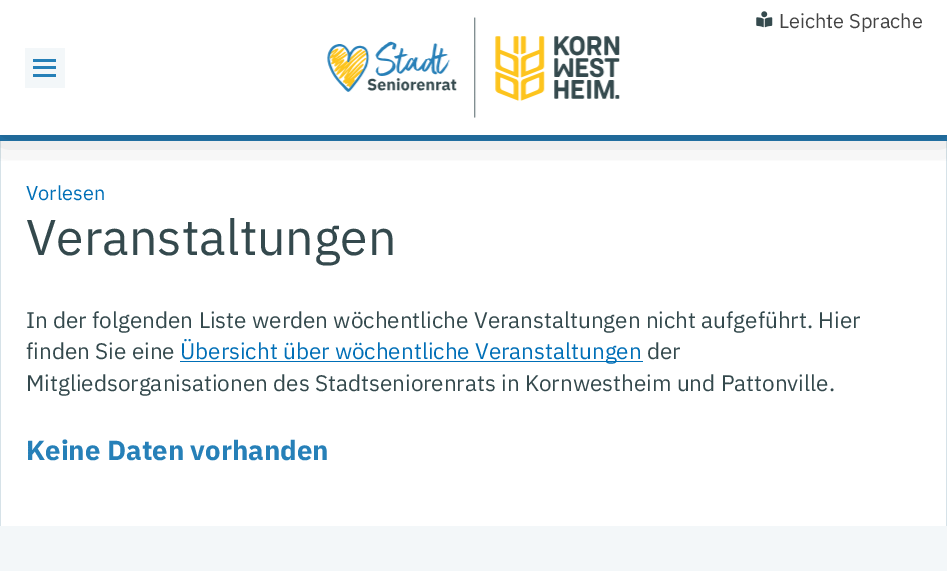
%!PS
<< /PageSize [947 571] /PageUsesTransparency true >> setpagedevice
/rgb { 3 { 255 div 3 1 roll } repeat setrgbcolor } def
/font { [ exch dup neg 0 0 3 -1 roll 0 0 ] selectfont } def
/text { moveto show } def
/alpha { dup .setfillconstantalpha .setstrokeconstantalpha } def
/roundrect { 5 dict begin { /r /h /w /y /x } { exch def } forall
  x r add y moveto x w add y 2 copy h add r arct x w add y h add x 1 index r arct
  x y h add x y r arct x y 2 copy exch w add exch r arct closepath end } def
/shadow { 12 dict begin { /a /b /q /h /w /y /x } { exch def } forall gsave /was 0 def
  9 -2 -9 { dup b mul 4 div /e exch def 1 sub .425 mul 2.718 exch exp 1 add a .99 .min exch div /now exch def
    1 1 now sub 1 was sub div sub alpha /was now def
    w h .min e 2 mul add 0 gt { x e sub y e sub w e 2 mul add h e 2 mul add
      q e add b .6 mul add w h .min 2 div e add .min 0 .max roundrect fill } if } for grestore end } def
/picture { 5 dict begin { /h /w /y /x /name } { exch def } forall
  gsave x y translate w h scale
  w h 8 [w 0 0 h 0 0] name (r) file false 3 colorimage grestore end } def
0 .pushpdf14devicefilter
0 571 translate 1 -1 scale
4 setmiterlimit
255 255 255 rgb
0 0 947 571 rectfill
35 118 170 rgb
0 135 947 6 rectfill
214 226 232 rgb
946 141 1 385 rectfill
0 141 1 385 rectfill
gsave
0 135 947 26 rectclip
0 0 0 rgb
0 0 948 135 0 20 0.2 shadow
grestore
(img_01.rgb) 327 17 293 101 picture
(img_02.rgb) 756 11 17 17 picture
243 247 249 rgb
25 48 40 40 rectfill
38 128 184 rgb
33 59 23 3 rectfill
33 66 23 3 rectfill
33 74 23 3 rectfill
0 111 183 rgb
180 361 463 1 rectfill
243 247 249 rgb
0 526 947 45 rectfill
/IBMPlexSans-Regular 20 font
68 68 68 rgb
(Leichte Sprache) 779 28 text
0 111 183 rgb
(Vorlesen) 26 200 text
/IBMPlexSans-Regular 50 font
52 73 77 rgb
(Veranstaltungen) 26 255 text
/IBMPlexSans-Regular 22.5 font
(In der folgenden Liste werden wöchentliche Veranstaltungen nicht aufgeführt. Hier) 26 328 text
(finden Sie eine) 26 359 text
0 111 183 rgb
(Übersicht über wöchentliche Veranstaltungen) 180 359 text
52 73 77 rgb
(der) 647 359 text
(Mitgliedsorganisationen des Stadtseniorenrats in Kornwestheim und Pattonville.) 26 391 text
/IBMPlexSans-Bold 27.5 font
38 128 184 rgb
(Keine Daten vorhanden) 26 460 text
.poppdf14devicefilter showpage
